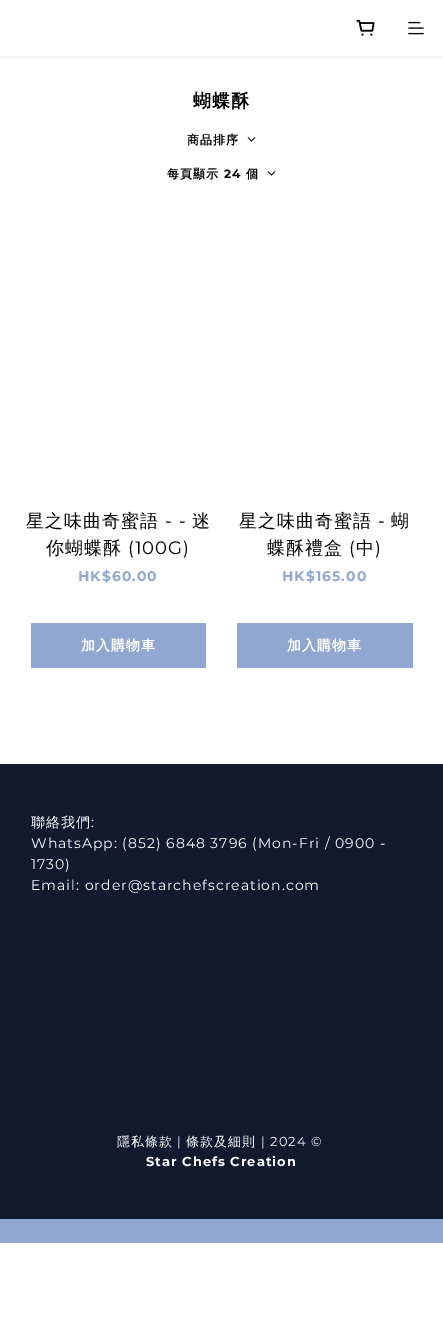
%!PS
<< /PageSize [443 1331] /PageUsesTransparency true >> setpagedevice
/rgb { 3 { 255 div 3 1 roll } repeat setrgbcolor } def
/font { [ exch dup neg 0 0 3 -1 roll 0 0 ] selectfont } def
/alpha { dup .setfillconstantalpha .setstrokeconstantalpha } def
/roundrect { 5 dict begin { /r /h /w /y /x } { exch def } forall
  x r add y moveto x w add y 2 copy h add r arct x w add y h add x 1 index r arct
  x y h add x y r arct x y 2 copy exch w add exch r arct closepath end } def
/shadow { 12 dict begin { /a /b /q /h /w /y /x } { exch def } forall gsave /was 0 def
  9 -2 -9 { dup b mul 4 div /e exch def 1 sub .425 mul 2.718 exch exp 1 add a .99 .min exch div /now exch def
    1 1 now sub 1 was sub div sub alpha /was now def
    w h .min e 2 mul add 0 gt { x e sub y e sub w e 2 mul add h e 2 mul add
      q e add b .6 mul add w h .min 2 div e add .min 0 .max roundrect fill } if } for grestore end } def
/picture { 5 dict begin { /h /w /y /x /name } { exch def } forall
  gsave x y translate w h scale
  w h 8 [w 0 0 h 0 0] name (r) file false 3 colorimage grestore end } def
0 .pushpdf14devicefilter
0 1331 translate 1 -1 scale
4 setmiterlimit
255 255 255 rgb
0 0 443 1331 rectfill
gsave
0 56 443 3 rectclip
0 0 0 rgb
0 2 443 56 0 3 0.06 shadow
grestore
(img_01.rgb) 356 19 19 17 picture
(img_02.rgb) 408 21 16 14 picture
(img_03.rgb) 247 137 9 5 picture
(img_03.rgb) 267 171 9 5 picture
144 167 209 rgb
31 623 175 45 rectfill
237 623 176 45 rectfill
18 26 47 rgb
0 764 443 455 rectfill
144 167 209 rgb
0 1219 443 24 rectfill
/WenQuanYiZenHei-Bold 18 font
0 0 0 rgb
193 107 moveto 1 0 (蝴蝶酥) ashow
/WenQuanYiZenHei-Bold 12 font
187 144 moveto 1 0 (商品排序) ashow
167 178 moveto 1 0 (每頁顯示) ashow
/Montserrat-Bold 12 font
224 178 moveto 1 0 (24) ashow
/WenQuanYiZenHei-Bold 12 font
246 178 moveto 1 0 (個) ashow
/WenQuanYiZenHei-Medium 18 font
26 527 moveto 1 0 (星之味曲奇蜜語) ashow
/Montserrat-Regular 18 font
165 527 moveto 1 0 (- -) ashow
/WenQuanYiZenHei-Medium 18 font
192 527 moveto 1 0 (迷) ashow
46 554 moveto 1 0 (你蝴蝶酥) ashow
/Montserrat-Regular 18 font
128 554 moveto 1 0 (\(100G\)) ashow
/Montserrat-Bold 14 font
144 167 209 rgb
78 581 moveto 1 0 (HK$60.00) ashow
/WenQuanYiZenHei-Bold 14 font
255 255 255 rgb
81 650 moveto 1 0 (加入購物車) ashow
/WenQuanYiZenHei-Medium 18 font
0 0 0 rgb
239 527 moveto 1 0 (星之味曲奇蜜語) ashow
/Montserrat-Regular 18 font
378 527 moveto 1 0 (-) ashow
/WenQuanYiZenHei-Medium 18 font
391 527 moveto 1 0 (蝴) ashow
267 554 moveto 1 0 (蝶酥禮盒) ashow
/Montserrat-Regular 18 font
349 554 moveto 1 0 (\() ashow
/WenQuanYiZenHei-Medium 18 font
356 554 moveto 1 0 (中) ashow
/Montserrat-Regular 18 font
375 554 moveto 1 0 (\)) ashow
/Montserrat-Bold 14 font
144 167 209 rgb
282 581 moveto 1 0 (HK$165.00) ashow
/WenQuanYiZenHei-Bold 14 font
255 255 255 rgb
287 650 moveto 1 0 (加入購物車) ashow
/WenQuanYiZenHei-Medium 14 font
31 827 moveto 1 0 (聯絡我們) ashow
/Montserrat-Regular 14 font
91 827 moveto 1 0 (:) ashow
31 848 moveto 1 0 (WhatsApp: \(852\) 6848 3796 \(Mon-Fri / 0900 -) ashow
31 869 moveto 1 0 (1730\)) ashow
31 890 moveto 1 0 (Email: order@starchefscreation.com) ashow
/WenQuanYiZenHei-Medium 13 font
117 1146 moveto 1 0 (隱私條款) ashow
/Montserrat-Regular 13 font
177 1146 moveto 1 0 (|) ashow
/WenQuanYiZenHei-Medium 13 font
186 1146 moveto 1 0 (條款及細則) ashow
/Montserrat-Regular 13 font
261 1146 moveto 1 0 (| 2024 ©) ashow
/Montserrat-Bold 13 font
146 1166 moveto 1 0 (Star Chefs Creation) ashow
.poppdf14devicefilter showpage
